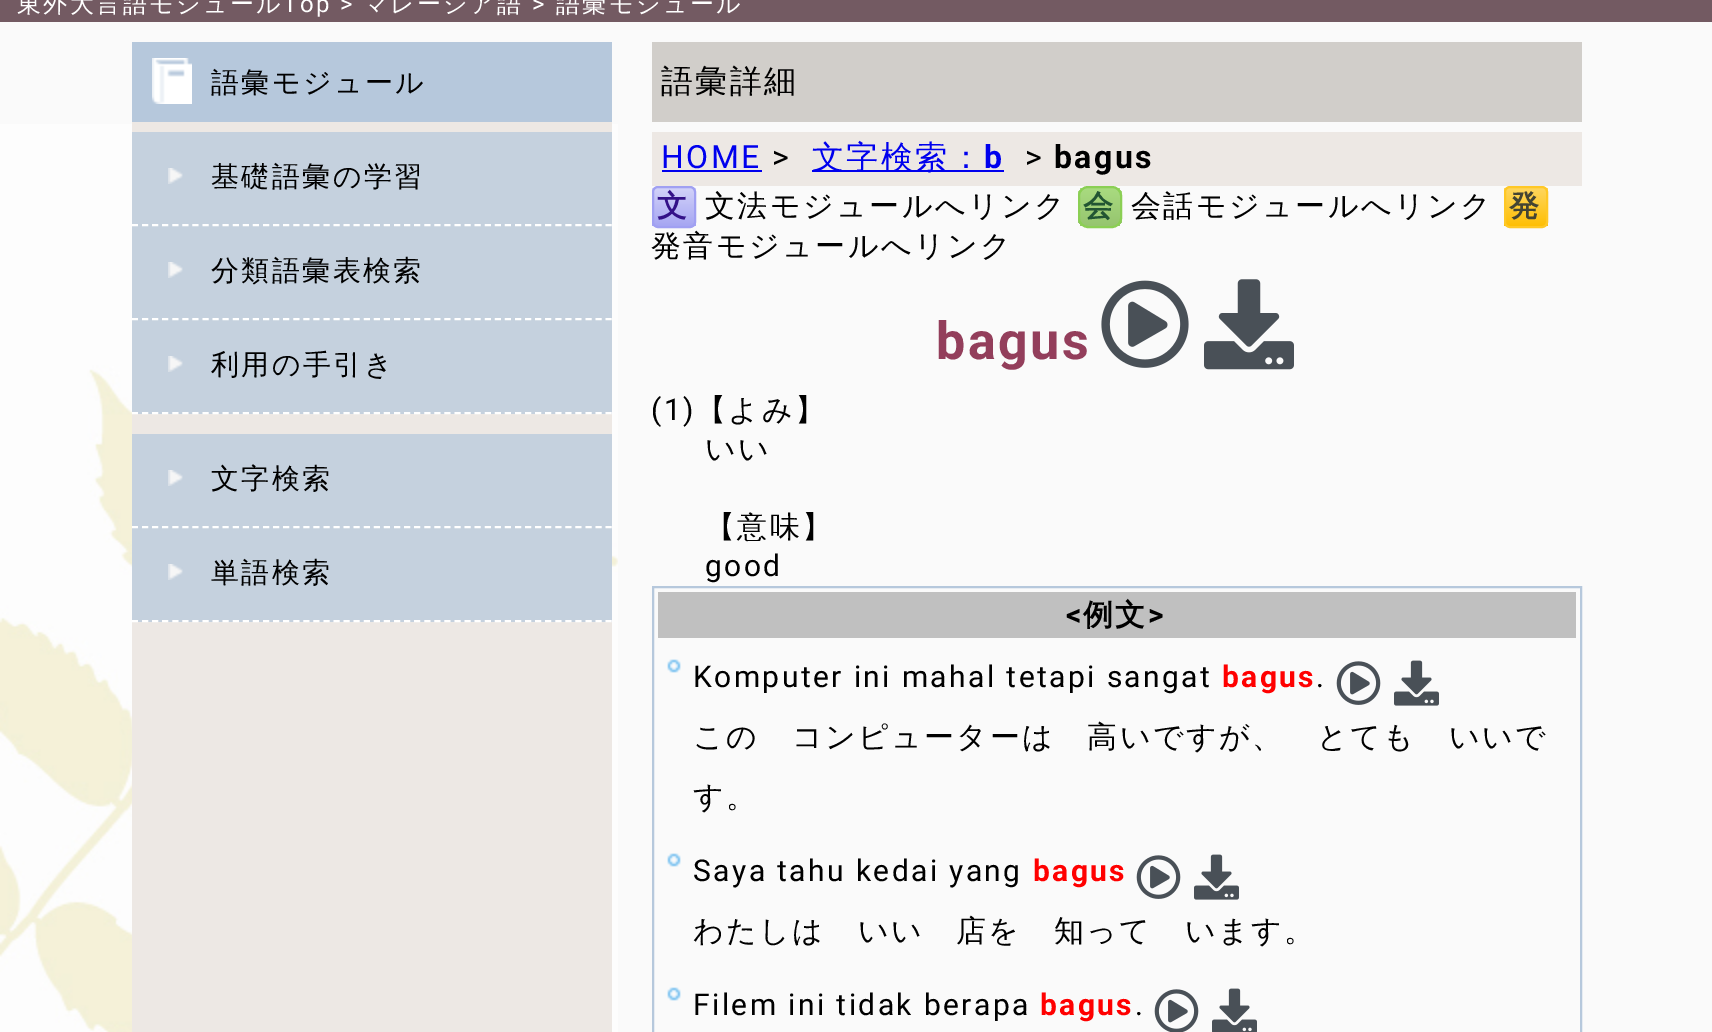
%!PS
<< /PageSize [1712 1032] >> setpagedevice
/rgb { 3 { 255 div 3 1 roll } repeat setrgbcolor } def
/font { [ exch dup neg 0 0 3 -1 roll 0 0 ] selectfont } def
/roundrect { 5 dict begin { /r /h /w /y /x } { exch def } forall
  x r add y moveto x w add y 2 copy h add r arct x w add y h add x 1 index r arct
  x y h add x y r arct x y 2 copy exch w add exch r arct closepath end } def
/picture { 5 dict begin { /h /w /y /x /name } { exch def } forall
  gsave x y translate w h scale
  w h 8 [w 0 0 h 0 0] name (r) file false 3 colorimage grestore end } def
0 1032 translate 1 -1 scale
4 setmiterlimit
250 250 250 rgb
0 0 1712 1032 rectfill
(img_01.rgb) 0 124 618 908 picture
115 90 98 rgb
0 0 1712 22 rectfill
237 232 228 rgb
132 122 480 910 rectfill
182 200 220 rgb
132 42 480 80 rectfill
(img_02.rgb) 152 58 40 46 picture
197 209 222 rgb
132 132 480 282 rectfill
(img_03.rgb) 168 168 15 16 picture
255 255 255 rgb
2 setlinewidth
[6 4.08] 0 setdash
132 225 moveto 480 0 rlineto stroke
(img_03.rgb) 168 262 15 16 picture
132 319 moveto 480 0 rlineto stroke
(img_03.rgb) 168 356 15 16 picture
132 413 moveto 480 0 rlineto stroke
197 209 222 rgb
132 434 480 188 rectfill
(img_03.rgb) 168 470 15 16 picture
255 255 255 rgb
132 527 moveto 480 0 rlineto stroke
(img_03.rgb) 168 564 15 16 picture
132 621 moveto 480 0 rlineto stroke
209 206 202 rgb
652 42 930 80 rectfill
237 232 228 rgb
652 132 930 54 rectfill
0 0 238 rgb
662 170 100 2 rectfill
812 170 192 2 rectfill
gsave
652 186 44 42 6 roundrect clip newpath
gsave 652 188 moveto 44 0 rlineto 0 38 rlineto -44 0 rlineto closepath clip newpath
<< /ShadingType 2 /ColorSpace /DeviceRGB /Coords [674 188 674 226] /Extend [true true] /Function << /FunctionType 2 /Domain [0 1] /C0 [0.824 0.824 0.976] /C1 [0.651 0.651 0.949] /N 1 >> >> shfill grestore
grestore
160 160 242 rgb
[] 0 setdash
653 187 42 40 5 roundrect stroke
gsave
1078 186 44 42 10 roundrect clip newpath
gsave 1078 188 moveto 44 0 rlineto 0 38 rlineto -44 0 rlineto closepath clip newpath
<< /ShadingType 2 /ColorSpace /DeviceRGB /Coords [1100 188 1100 226] /Extend [true true] /Function << /FunctionType 2 /Domain [0 1] /C0 [0.663 0.859 0.502] /C1 [0.588 0.773 0.435] /N 1 >> >> shfill grestore
grestore
139 207 84 rgb
1079 187 42 40 9 roundrect stroke
gsave
1504 186 44 42 6 roundrect clip newpath
gsave 1504 188 moveto 44 0 rlineto 0 38 rlineto -44 0 rlineto closepath clip newpath
<< /ShadingType 2 /ColorSpace /DeviceRGB /Coords [1526 188 1526 226] /Extend [true true] /Function << /FunctionType 2 /Domain [0 1] /C0 [1 0.839 0.369] /C1 [0.996 0.749 0.016] /N 1 >> >> shfill grestore
grestore
255 200 38 rgb
1505 187 42 40 5 roundrect stroke
(img_04.rgb) 1101 280 88 88 picture
(img_05.rgb) 1204 279 90 91 picture
182 200 220 rgb
653 587 928 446 rectstroke
192 192 192 rgb
658 592 918 46 rectfill
(img_06.rgb) 667 659 14 14 picture
(img_07.rgb) 1336 661 45 44 picture
(img_08.rgb) 1394 660 45 46 picture
(img_06.rgb) 667 853 14 14 picture
(img_07.rgb) 1136 855 45 44 picture
(img_08.rgb) 1194 854 45 46 picture
(img_06.rgb) 667 987 14 14 picture
(img_09.rgb) 1154 989 45 43 picture
(img_10.rgb) 1212 988 45 44 picture
/WenQuanYiZenHei-Medium 24 font
255 255 255 rgb
17 12 moveto 2.4 0 (東外大言語モジュール) ashow
/Roboto-Regular 24 font
283 12 moveto 2.4 0 (Top >) ashow
/WenQuanYiZenHei-Medium 24 font
363 12 moveto 2.4 0 (マレーシア語) ashow
/Roboto-Regular 24 font
532 12 moveto 2.4 0 (>) ashow
/WenQuanYiZenHei-Medium 24 font
556 12 moveto 2.4 0 (語彙モジュール) ashow
/WenQuanYiZenHei-Medium 28 font
0 0 0 rgb
211 92 moveto 2.4 0 (語彙モジュール) ashow
211 186 moveto 2.4 0 (基礎語彙の学習) ashow
211 280 moveto 2.4 0 (分類語彙表検索) ashow
211 374 moveto 2.4 0 (利用の手引き) ashow
211 488 moveto 2.4 0 (文字検索) ashow
211 582 moveto 2.4 0 (単語検索) ashow
/WenQuanYiZenHei-Medium 32 font
661 92 moveto 2.4 0 (語彙詳細) ashow
/Roboto-Regular 32 font
0 0 238 rgb
661 168 moveto 2.4 0 (HOME) ashow
0 0 0 rgb
772 168 moveto 2.4 0 (>) ashow
/WenQuanYiZenHei-Medium 32 font
0 0 238 rgb
812 168 moveto 2.4 0 (文字検索：) ashow
/Roboto-Bold 32 font
984 168 moveto 2.4 0 (b) ashow
/Roboto-Regular 32 font
0 0 0 rgb
1025 168 moveto 2.4 0 (>) ashow
/Roboto-Bold 32 font
1054 168 moveto 2.4 0 (bagus) ashow
/WenQuanYiZenHei-Bold 30 font
51 17 136 rgb
657 216 moveto 2.4 0 (文) ashow
/WenQuanYiZenHei-Medium 30 font
0 0 0 rgb
705 216 moveto 2.4 0 (文法モジュールへリンク) ashow
/WenQuanYiZenHei-Bold 30 font
34 85 51 rgb
1083 216 moveto 2.4 0 (会) ashow
/WenQuanYiZenHei-Medium 30 font
0 0 0 rgb
1131 216 moveto 2.4 0 (会話モジュールへリンク) ashow
/WenQuanYiZenHei-Bold 30 font
68 68 51 rgb
1509 216 moveto 2.4 0 (発) ashow
/WenQuanYiZenHei-Medium 30 font
0 0 0 rgb
651 256 moveto 2.4 0 (発音モジュールへリンク) ashow
/Roboto-Bold 52 font
147 62 91 rgb
936 359 moveto 2.4 0 (bagus) ashow
/Roboto-Regular 30 font
0 0 0 rgb
651 420 moveto 2.4 0 (\(1\)) ashow
/WenQuanYiZenHei-Medium 30 font
696 420 moveto 2.4 0 (【よみ】) ashow
705 459 moveto 2.4 0 (いい) ashow
705 537 moveto 2.4 0 (【意味】) ashow
/Roboto-Regular 30 font
705 576 moveto 2.4 0 (good) ashow
/Roboto-Bold 30 font
1066 625 moveto 2.4 0 (<) ashow
/WenQuanYiZenHei-Bold 30 font
1083 625 moveto 2.4 0 (例文) ashow
/Roboto-Bold 30 font
1148 625 moveto 2.4 0 (>) ashow
/Roboto-Regular 30 font
693 687 moveto 2.4 0 (Komputer ini mahal tetapi sangat) ashow
/Roboto-Bold 30 font
255 0 0 rgb
1222 687 moveto 2.4 0 (bagus) ashow
/Roboto-Regular 30 font
0 0 0 rgb
1316 687 moveto 2.4 0 (.) ashow
/WenQuanYiZenHei-Medium 30 font
693 747 moveto 2.4 0 (この　コンピューターは　高いですが、　とても) ashow
1449 747 moveto 2.4 0 (いいで) ashow
693 807 moveto 2.4 0 (す。) ashow
/Roboto-Regular 30 font
693 881 moveto 2.4 0 (Saya tahu kedai yang) ashow
/Roboto-Bold 30 font
255 0 0 rgb
1033 881 moveto 2.4 0 (bagus) ashow
/WenQuanYiZenHei-Medium 30 font
0 0 0 rgb
693 941 moveto 2.4 0 (わたしは) ashow
858 941 moveto 2.4 0 (いい) ashow
956 941 moveto 2.4 0 (店を　知って　います。) ashow
/Roboto-Regular 30 font
693 1015 moveto 2.4 0 (Filem ini tidak berapa) ashow
/Roboto-Bold 30 font
255 0 0 rgb
1040 1015 moveto 2.4 0 (bagus) ashow
/Roboto-Regular 30 font
0 0 0 rgb
1135 1015 moveto 2.4 0 (.) ashow
showpage
